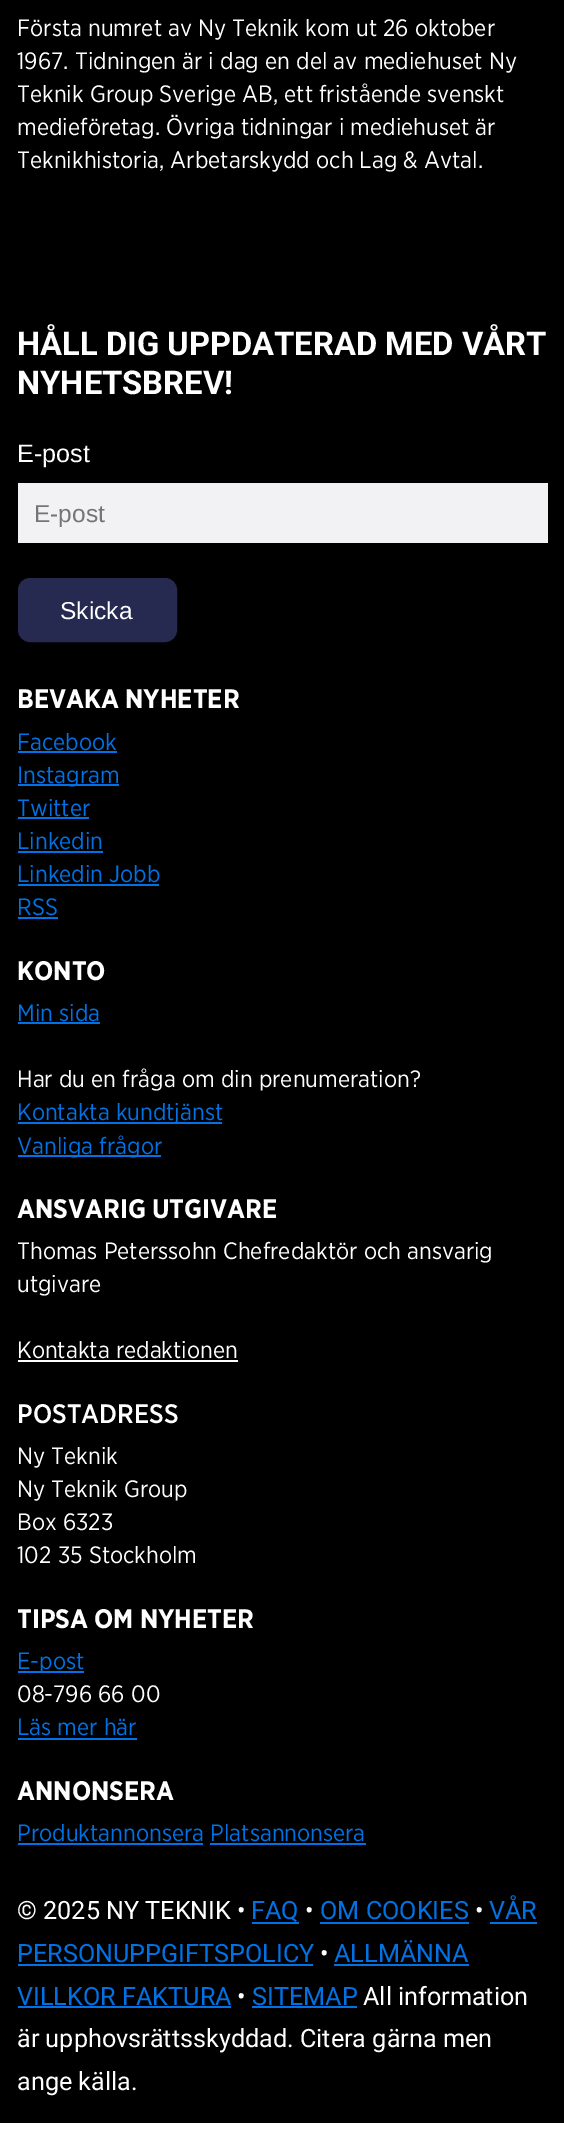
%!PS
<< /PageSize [564 2140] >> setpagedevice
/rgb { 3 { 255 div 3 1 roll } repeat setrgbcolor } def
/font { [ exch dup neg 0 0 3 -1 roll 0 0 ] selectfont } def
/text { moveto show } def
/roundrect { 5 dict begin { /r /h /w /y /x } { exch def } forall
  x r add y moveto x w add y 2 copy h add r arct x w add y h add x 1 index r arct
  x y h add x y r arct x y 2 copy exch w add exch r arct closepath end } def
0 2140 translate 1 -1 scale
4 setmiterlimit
255 255 255 rgb
0 0 564 2140 rectfill
0 0 0 rgb
0 0 564 2123 rectfill
242 242 245 rgb
18 483 530 60 rectfill
38 41 80 rgb
20 580 155 60 10 roundrect gsave fill grestore
4 setlinewidth
stroke
1 113 227 rgb
18 751 99 2 rectfill
18 784 101 2 rectfill
18 817 71 2 rectfill
18 851 85 2 rectfill
18 884 141 2 rectfill
18 917 40 2 rectfill
18 1022 82 2 rectfill
18 1122 204 2 rectfill
18 1155 143 2 rectfill
255 255 255 rgb
18 1360 220 2 rectfill
1 113 227 rgb
18 1671 66 2 rectfill
18 1738 119 2 rectfill
18 1843 185 2 rectfill
210 1843 156 2 rectfill
252 1922 47 2 rectfill
320 1922 149 2 rectfill
490 1922 47 2 rectfill
18 1964 295 2 rectfill
334 1964 135 2 rectfill
18 2006 213 2 rectfill
252 2006 105 2 rectfill
/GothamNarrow-Regular 23.7 font
255 255 255 rgb
(Första numret av Ny Teknik kom ut 26 oktober) 17 36 text
(1967. Tidningen är i dag en del av mediehuset Ny) 17 69 text
(Teknik Group Sverige AB, ett fristående svenskt) 17 102 text
(medieföretag. Övriga tidningar i mediehuset är) 17 135 text
(Teknikhistoria, Arbetarskydd och Lag & Avtal.) 17 168 text
/Roboto-Bold 32.75 font
(HÅLL DIG UPPDATERAD MED VÅRT) 17 355 text
(NYHETSBREV!) 17 394 text
/LiberationSans-Regular 25.2 font
(E-post) 17 462 text
/LiberationSans-Regular 24.5 font
117 117 117 rgb
(E-post) 34 522 text
255 255 255 rgb
(Skicka) 60 619 text
/GothamNarrow-Bold 26.75 font
(BEVAKA NYHETER) 17 708 text
/GothamNarrow-Regular 23.7 font
1 113 227 rgb
(Facebook) 17 750 text
(Instagram) 17 783 text
(Twitter) 17 816 text
(Linkedin) 17 849 text
(Linkedin Jobb) 17 882 text
(RSS) 17 915 text
/GothamNarrow-Bold 26.75 font
255 255 255 rgb
(KONTO) 17 980 text
/GothamNarrow-Regular 23.7 font
1 113 227 rgb
(Min sida) 17 1021 text
255 255 255 rgb
(Har du en fråga om din prenumeration?) 17 1087 text
1 113 227 rgb
(Kontakta kundtjänst) 17 1120 text
(Vanliga frågor) 17 1154 text
/GothamNarrow-Bold 26.75 font
255 255 255 rgb
(ANSVARIG UTGIVARE) 17 1218 text
/GothamNarrow-Regular 23.7 font
(Thomas Peterssohn Chefredaktör och ansvarig) 17 1259 text
(utgivare) 17 1292 text
(Kontakta redaktionen) 17 1358 text
/GothamNarrow-Medium 26.75 font
(POSTADRESS) 17 1423 text
/GothamNarrow-Regular 23.7 font
(Ny Teknik) 17 1464 text
(Ny Teknik Group) 17 1497 text
(Box 6323) 17 1530 text
(102 35 Stockholm) 17 1563 text
gsave
18 1596 530 154 rectclip
/GothamNarrow-Bold 26.75 font
(TIPSA OM NYHETER) 17 1628 text
grestore
1 113 227 rgb
(E-post) 17 1669 text
255 255 255 rgb
(08-796 66 00) 17 1702 text
1 113 227 rgb
(Läs mer här) 17 1735 text
/GothamNarrow-Bold 26.75 font
255 255 255 rgb
(ANNONSERA) 17 1800 text
/GothamNarrow-Regular 23.7 font
1 113 227 rgb
(Produktannonsera Platsannonsera) 17 1841 text
/Roboto-Regular 25.2 font
255 255 255 rgb
(© 2025 NY TEKNIK •) 17 1919 text
1 113 227 rgb
(FAQ) 251 1919 text
255 255 255 rgb
(•) 305 1919 text
1 113 227 rgb
(OM COOKIES) 320 1919 text
255 255 255 rgb
(•) 475 1919 text
1 113 227 rgb
(VÅR) 489 1919 text
(PERSONUPPGIFTSPOLICY) 17 1962 text
255 255 255 rgb
(•) 320 1962 text
1 113 227 rgb
(ALLMÄNNA) 334 1962 text
(VILLKOR FAKTURA) 17 2005 text
255 255 255 rgb
(•) 237 2005 text
1 113 227 rgb
(SITEMAP) 252 2005 text
255 255 255 rgb
(All information) 363 2005 text
(är upphovsrättsskyddad. Citera gärna men) 17 2047 text
(ange källa.) 17 2090 text
showpage
